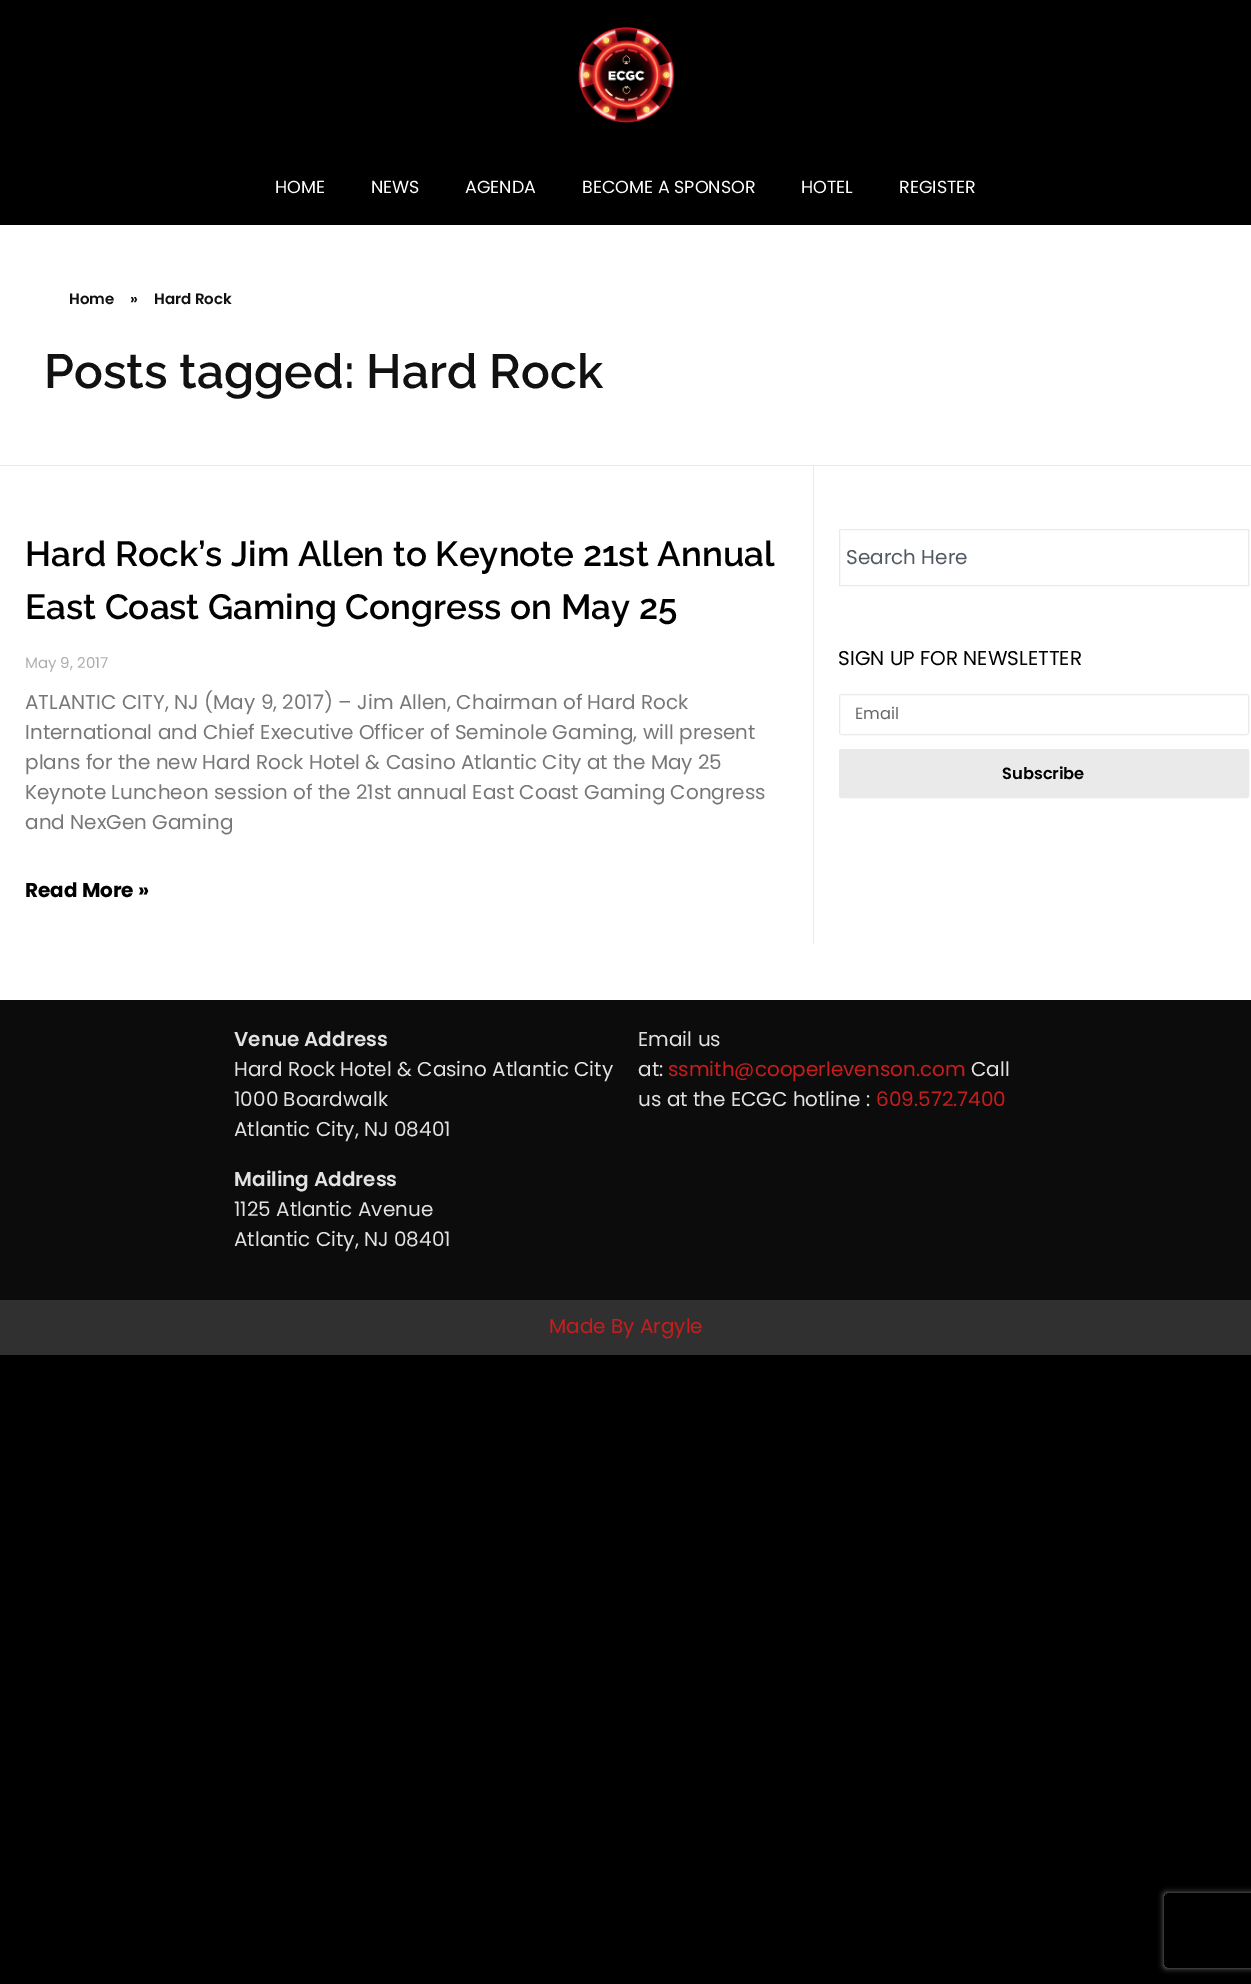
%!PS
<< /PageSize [1251 1984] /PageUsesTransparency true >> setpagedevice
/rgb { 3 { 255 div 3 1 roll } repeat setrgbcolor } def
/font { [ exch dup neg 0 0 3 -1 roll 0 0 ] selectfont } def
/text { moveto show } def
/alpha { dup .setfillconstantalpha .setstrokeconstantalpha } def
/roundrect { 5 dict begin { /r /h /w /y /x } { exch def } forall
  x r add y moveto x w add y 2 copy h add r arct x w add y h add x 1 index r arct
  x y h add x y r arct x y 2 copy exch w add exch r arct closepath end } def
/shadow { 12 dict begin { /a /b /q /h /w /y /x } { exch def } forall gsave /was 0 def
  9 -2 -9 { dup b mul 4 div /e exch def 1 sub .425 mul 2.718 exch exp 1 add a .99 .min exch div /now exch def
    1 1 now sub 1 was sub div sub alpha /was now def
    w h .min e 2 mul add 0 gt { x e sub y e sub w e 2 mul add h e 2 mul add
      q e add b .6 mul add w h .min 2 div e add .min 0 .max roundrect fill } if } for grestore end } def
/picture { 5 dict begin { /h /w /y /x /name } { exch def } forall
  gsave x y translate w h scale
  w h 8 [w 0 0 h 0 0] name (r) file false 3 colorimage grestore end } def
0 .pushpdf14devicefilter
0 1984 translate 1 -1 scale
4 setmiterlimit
0 0 0 rgb
0 0 1251 1984 rectfill
255 255 255 rgb
0 225 1251 775 rectfill
(img_01.rgb) 578 27 97 96 picture
234 234 234 rgb
0 465 1251 1 rectfill
813 466 1 478 rectfill
839.5 529.5 409 56 rectstroke
839.5 694.5 409 40 2 roundrect stroke
841 751 406 45 0.5 roundrect gsave fill grestore
4 setlinewidth
stroke
gsave
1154 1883 moveto 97 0 rlineto 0 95 rlineto -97 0 rlineto closepath 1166.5 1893 moveto 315 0 rlineto 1.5 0 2.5 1 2.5 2.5 rcurveto 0 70 rlineto 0 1.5 -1 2.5 -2.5 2.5 rcurveto -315 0 rlineto -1.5 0 -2.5 -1 -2.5 -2.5 rcurveto 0 -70 rlineto 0 -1.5 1 -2.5 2.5 -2.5 rcurveto closepath eoclip newpath
128 128 128 rgb
1164 1893 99 75 2.5 3 1 shadow
grestore
12 12 12 rgb
0 1000 1251 300 rectfill
48 48 48 rgb
0 1300 1251 55 rectfill
/Poppins-Regular 17.5 font
255 255 255 rgb
(HOME) 275 193 text
(NEWS) 371 193 text
(AGENDA) 465 193 text
(BECOME A SPONSOR) 582 193 text
(HOTEL) 801 193 text
(REGISTER) 899 193 text
/Poppins-SemiBold 15 font
17 17 17 rgb
(Home) 69 304 text
(») 130 304 text
(Hard Rock) 154 304 text
/Raleway-SemiBold 48 font
(Posts tagged: Hard Rock) 44 388 text
/Raleway-SemiBold 35 font
0 0 0 rgb
(Hard Rock’s Jim Allen to Keynote 21st Annual) 25 566 text
(East Coast Gaming Congress on May 25) 25 619 text
/Poppins-Regular 15 font
173 173 173 rgb
(May 9, 2017) 25 668 text
/Poppins-Regular 20 font
119 119 119 rgb
(ATLANTIC CITY, NJ \(May 9, 2017\) – Jim Allen, Chairman of Hard Rock) 25 709 text
(International and Chief Executive Officer of Seminole Gaming, will present) 25 739 text
(plans for the new Hard Rock Hotel & Casino Atlantic City at the May 25) 25 769 text
(Keynote Luncheon session of the 21st annual East Coast Gaming Congress) 25 799 text
(and NexGen Gaming) 25 829 text
/Poppins-Bold 20 font
0 0 0 rgb
(Read More ») 25 897 text
/Poppins-Regular 20 font
81 89 98 rgb
(Search Here) 846 564 text
0 0 0 rgb
(SIGN UP FOR NEWSLETTER) 838 665 text
/Poppins-Regular 16.25 font
102 102 102 rgb
(Email) 855 719 text
/Poppins-SemiBold 16.25 font
0 0 0 rgb
(Subscribe) 1002 779 text
/Poppins-SemiBold 20 font
226 226 226 rgb
(Venue Address) 234 1046 text
/Poppins-Regular 20 font
(Hard Rock Hotel & Casino Atlantic City) 234 1076 text
(1000 Boardwalk) 234 1106 text
(Atlantic City, NJ 08401) 234 1136 text
/Poppins-SemiBold 20 font
(Mailing Address) 234 1186 text
/Poppins-Regular 20 font
(1125 Atlantic Avenue) 234 1216 text
(Atlantic City, NJ 08401) 234 1246 text
(Email us) 638 1046 text
(at:) 638 1076 text
198 29 29 rgb
(ssmith@cooperlevenson.com) 668 1076 text
226 226 226 rgb
(Call) 971 1076 text
(us at the ECGC hotline :) 638 1106 text
198 29 29 rgb
(609.572.7400) 876 1106 text
(Made By Argyle) 549 1333 text
.poppdf14devicefilter showpage
